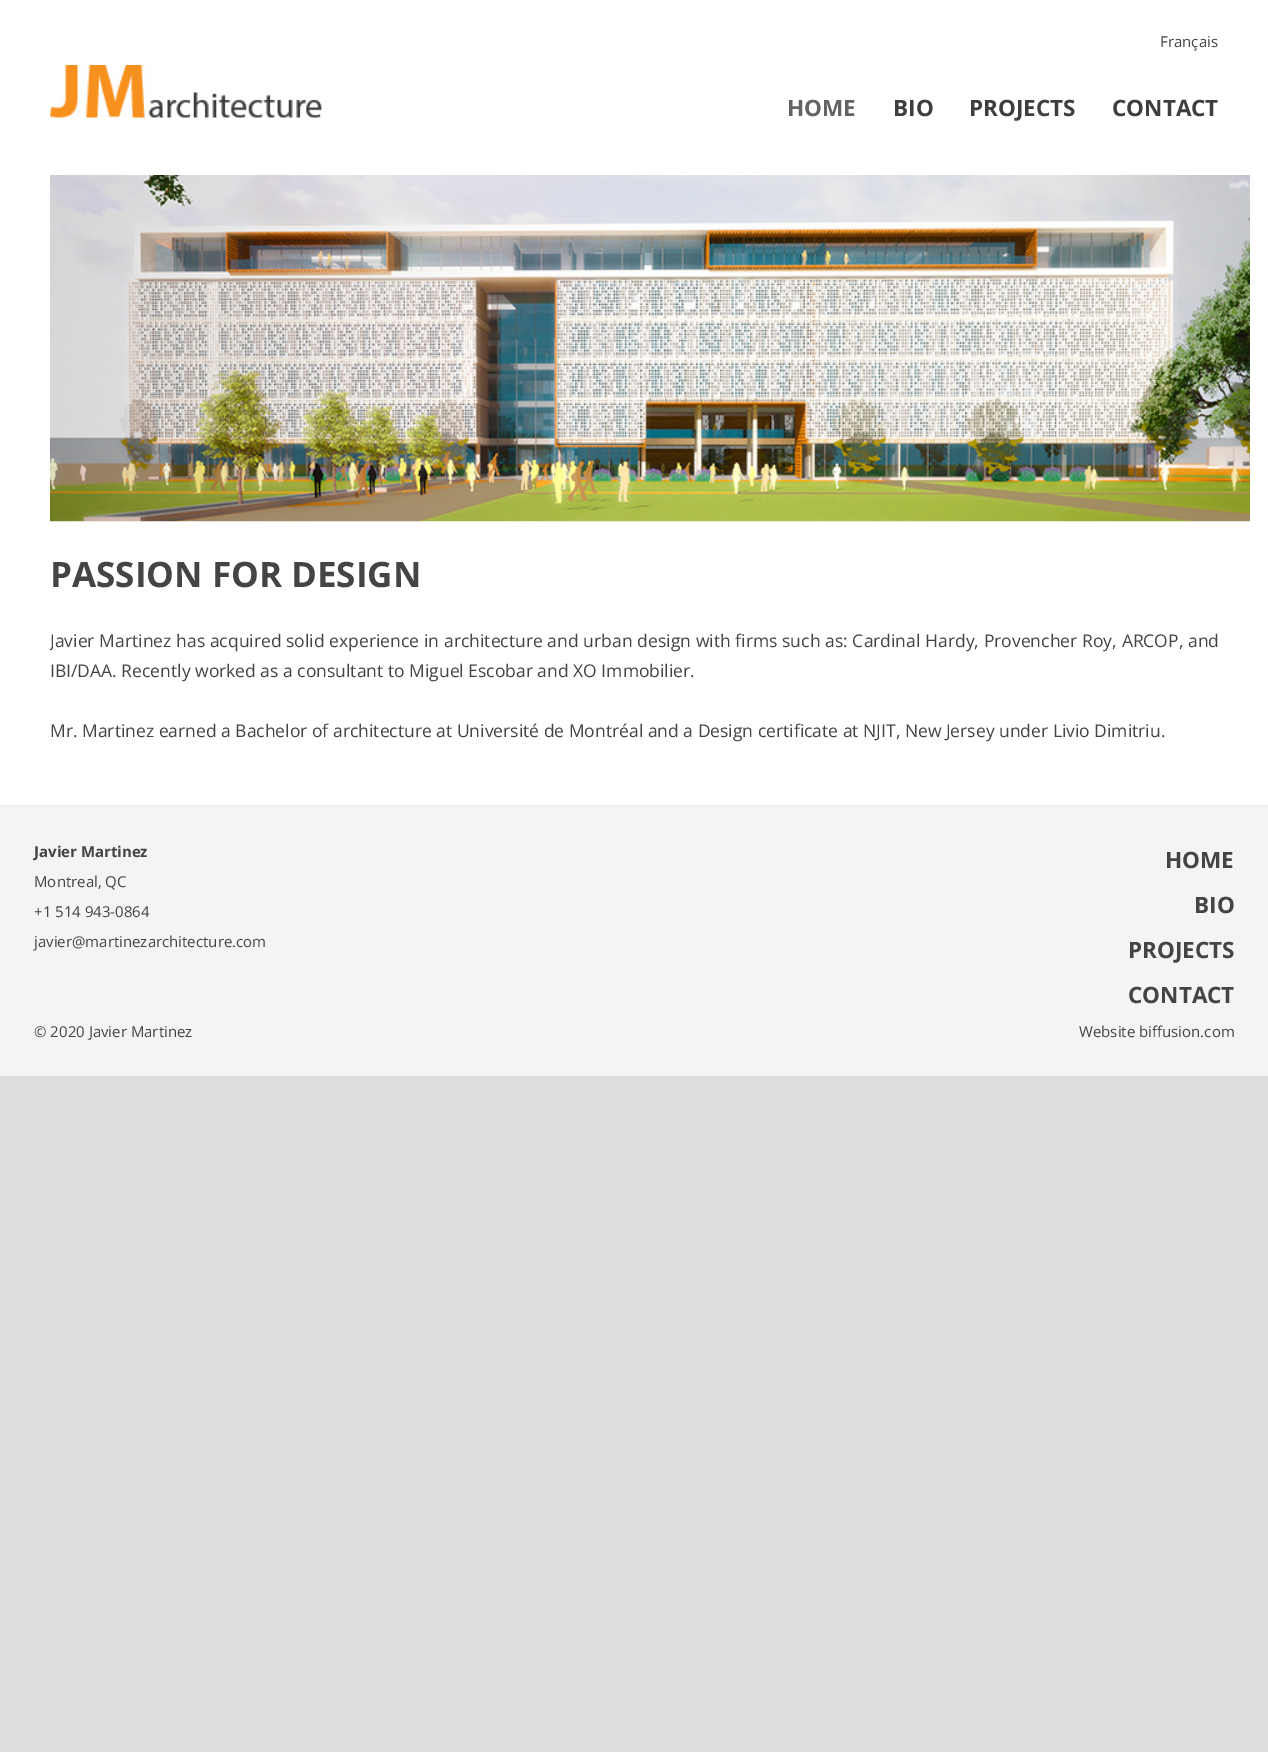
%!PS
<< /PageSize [1268 1752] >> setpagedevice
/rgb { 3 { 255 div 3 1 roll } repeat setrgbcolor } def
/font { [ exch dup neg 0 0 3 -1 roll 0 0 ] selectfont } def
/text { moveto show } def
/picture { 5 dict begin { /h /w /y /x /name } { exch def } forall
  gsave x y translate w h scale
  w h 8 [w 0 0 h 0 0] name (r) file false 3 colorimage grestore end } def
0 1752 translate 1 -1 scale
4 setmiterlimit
221 221 221 rgb
0 0 1268 1752 rectfill
255 255 255 rgb
0 0 1268 805 rectfill
(img_01.rgb) 50 65 272 53 picture
(img_02.rgb) 50 175 1200 347 picture
244 244 244 rgb
0 806 1268 270 rectfill
237 237 237 rgb
0 805 1268 1 rectfill
/OpenSans-Regular 15 font
68 68 68 rgb
(Français) 1160 47 text
/OpenSans-Bold 22.5 font
99 99 99 rgb
(HOME) 787 116 text
62 62 62 rgb
(BIO) 893 116 text
(PROJECTS) 969 116 text
(CONTACT) 1112 116 text
/OpenSans-Bold 35 font
68 68 68 rgb
(PASSION FOR DESIGN) 50 587 text
gsave
50 554 1169 221 rectclip
/OpenSans-Regular 17.5 font
50 647 moveto 0.25 0 32 (Javier Martinez has acquired solid experience in architecture and urban design with firms such as: Cardinal Hardy, Provencher Roy, ARCOP, and) widthshow
grestore
/OpenSans-Regular 17.5 font
(IBI/DAA. Recently worked as a consultant to Miguel Escobar and XO Immobilier.) 50 677 text
(Mr. Martinez earned a Bachelor of architecture at Université de Montréal and a Design certificate at NJIT, New Jersey under Livio Dimitriu.) 50 737 text
/OpenSans-Bold 15 font
(Javier Martinez) 34 857 text
/OpenSans-Bold 22.5 font
(HOME) 1165 868 text
(BIO) 1194 913 text
(PROJECTS) 1128 958 text
(CONTACT) 1128 1003 text
/OpenSans-Regular 15 font
(Montreal, QC) 34 887 text
(+1 514 943-0864) 34 917 text
(javier@martinezarchitecture.com) 34 947 text
(© 2020 Javier Martinez) 34 1037 text
(Website biffusion.com) 1079 1037 text
showpage
